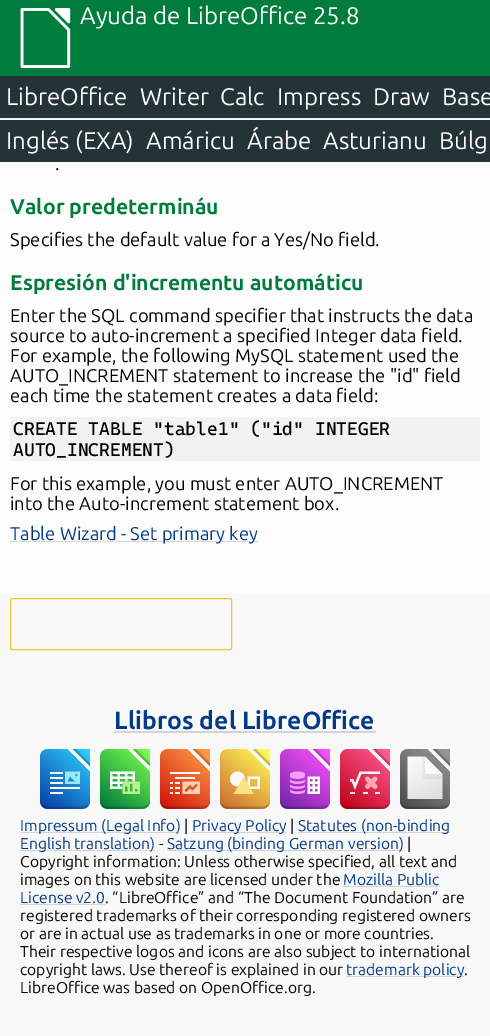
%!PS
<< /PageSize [490 1036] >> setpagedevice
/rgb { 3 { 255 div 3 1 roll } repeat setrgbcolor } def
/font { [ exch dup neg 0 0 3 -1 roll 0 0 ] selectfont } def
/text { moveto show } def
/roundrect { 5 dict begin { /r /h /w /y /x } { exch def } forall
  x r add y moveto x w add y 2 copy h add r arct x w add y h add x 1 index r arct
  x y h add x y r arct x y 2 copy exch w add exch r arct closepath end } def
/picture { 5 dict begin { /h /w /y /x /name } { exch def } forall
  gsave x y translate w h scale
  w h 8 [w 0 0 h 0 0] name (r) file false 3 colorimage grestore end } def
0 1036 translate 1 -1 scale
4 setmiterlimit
247 248 247 rgb
0 0 490 1036 rectfill
0 124 60 rgb
0 0 490 76 rectfill
(img_01.rgb) 20 8 51 60 picture
35 51 54 rgb
0 76 490 42 rectfill
243 243 243 rgb
0 118 490 2 rectfill
35 51 54 rgb
0 120 490 42 rectfill
252 252 252 rgb
0 162 490 431 rectfill
242 242 242 rgb
10 417 470 44 2 roundrect fill
214 214 214 rgb
10 541 248 1 rectfill
241 198 42 rgb
10.5 598.5 221 51 1.5 roundrect stroke
210 211 210 rgb
114 731 262 2 rectfill
(img_02.rgb) 40 749 50 60 picture
(img_03.rgb) 100 749 50 60 picture
(img_04.rgb) 160 749 50 60 picture
(img_05.rgb) 220 749 50 60 picture
(img_06.rgb) 280 749 50 60 picture
(img_07.rgb) 340 749 50 60 picture
(img_08.rgb) 400 749 50 60 picture
20 832 160 1 rectfill
192 832 94 1 rectfill
298 832 152 1 rectfill
20 850 135 1 rectfill
167 850 236 1 rectfill
343 886 97 1 rectfill
20 904 85 1 rectfill
346 976 118 1 rectfill
/Ubuntu-Regular 24 font
255 255 255 rgb
(Ayuda de LibreOffice 25.8) 80 24 text
(LibreOffice) 6 105 text
(Writer) 140 105 text
(Calc) 220 105 text
(Impress) 277 105 text
(Draw) 373 105 text
(Base) 442 105 text
(Inglés \(EXA\)) 6 149 text
(Amáricu) 146 149 text
(Árabe) 247 149 text
(Asturianu) 323 149 text
(Búlg) 439 149 text
/Ubuntu-Regular 18.4 font
0 0 0 rgb
(.) 55 170 text
/Ubuntu-Bold 21.25 font
0 124 60 rgb
(Valor predetermináu) 10 214 text
/Ubuntu-Regular 18.4 font
0 0 0 rgb
(Specifies the default value for a Yes/No field.) 10 246 text
/Ubuntu-Bold 21.25 font
0 124 60 rgb
(Espresión d'incrementu automáticu) 10 290 text
/Ubuntu-Regular 18.4 font
0 0 0 rgb
(Enter the SQL command specifier that instructs the data) 10 322 text
(source to auto-increment a specified Integer data field.) 10 342 text
(For example, the following MySQL statement used the) 10 362 text
(AUTO_INCREMENT statement to increase the "id" field) 10 382 text
(each time the statement creates a data field:) 10 402 text
/CascadiaMono-Regular 18.4 font
(CREATE TABLE "table1" \("id" INTEGER) 13 435 text
(AUTO_INCREMENT\)) 13 456 text
/Ubuntu-Regular 18.4 font
(For this example, you must enter AUTO_INCREMENT) 10 490 text
(into the Auto-increment statement box.) 10 510 text
2 58 134 rgb
(Table Wizard - Set primary key) 10 540 text
/Ubuntu-Bold 24.75 font
(Llibros del LibreOffice) 114 729 text
/Ubuntu-Regular 15.7 font
(Impressum \(Legal Info\)) 20 831 text
0 0 0 rgb
(|) 184 831 text
2 58 134 rgb
(Privacy Policy) 192 831 text
0 0 0 rgb
(|) 290 831 text
2 58 134 rgb
(Statutes \(non-binding) 298 831 text
(English translation\)) 20 849 text
0 0 0 rgb
(-) 159 849 text
2 58 134 rgb
(Satzung \(binding German version\)) 167 849 text
0 0 0 rgb
(|) 407 849 text
(Copyright information: Unless otherwise specified, all text and) 20 867 text
(images on this website are licensed under the) 20 885 text
2 58 134 rgb
(Mozilla Public) 343 885 text
(License v2.0) 20 903 text
0 0 0 rgb
(. “LibreOffice” and “The Document Foundation” are) 105 903 text
(registered trademarks of their corresponding registered owners) 20 921 text
(or are in actual use as trademarks in one or more countries.) 20 939 text
(Their respective logos and icons are also subject to international) 20 957 text
(copyright laws. Use thereof is explained in our) 20 975 text
2 58 134 rgb
(trademark policy) 346 975 text
0 0 0 rgb
(.) 464 975 text
(LibreOffice was based on OpenOffice.org.) 20 993 text
showpage
